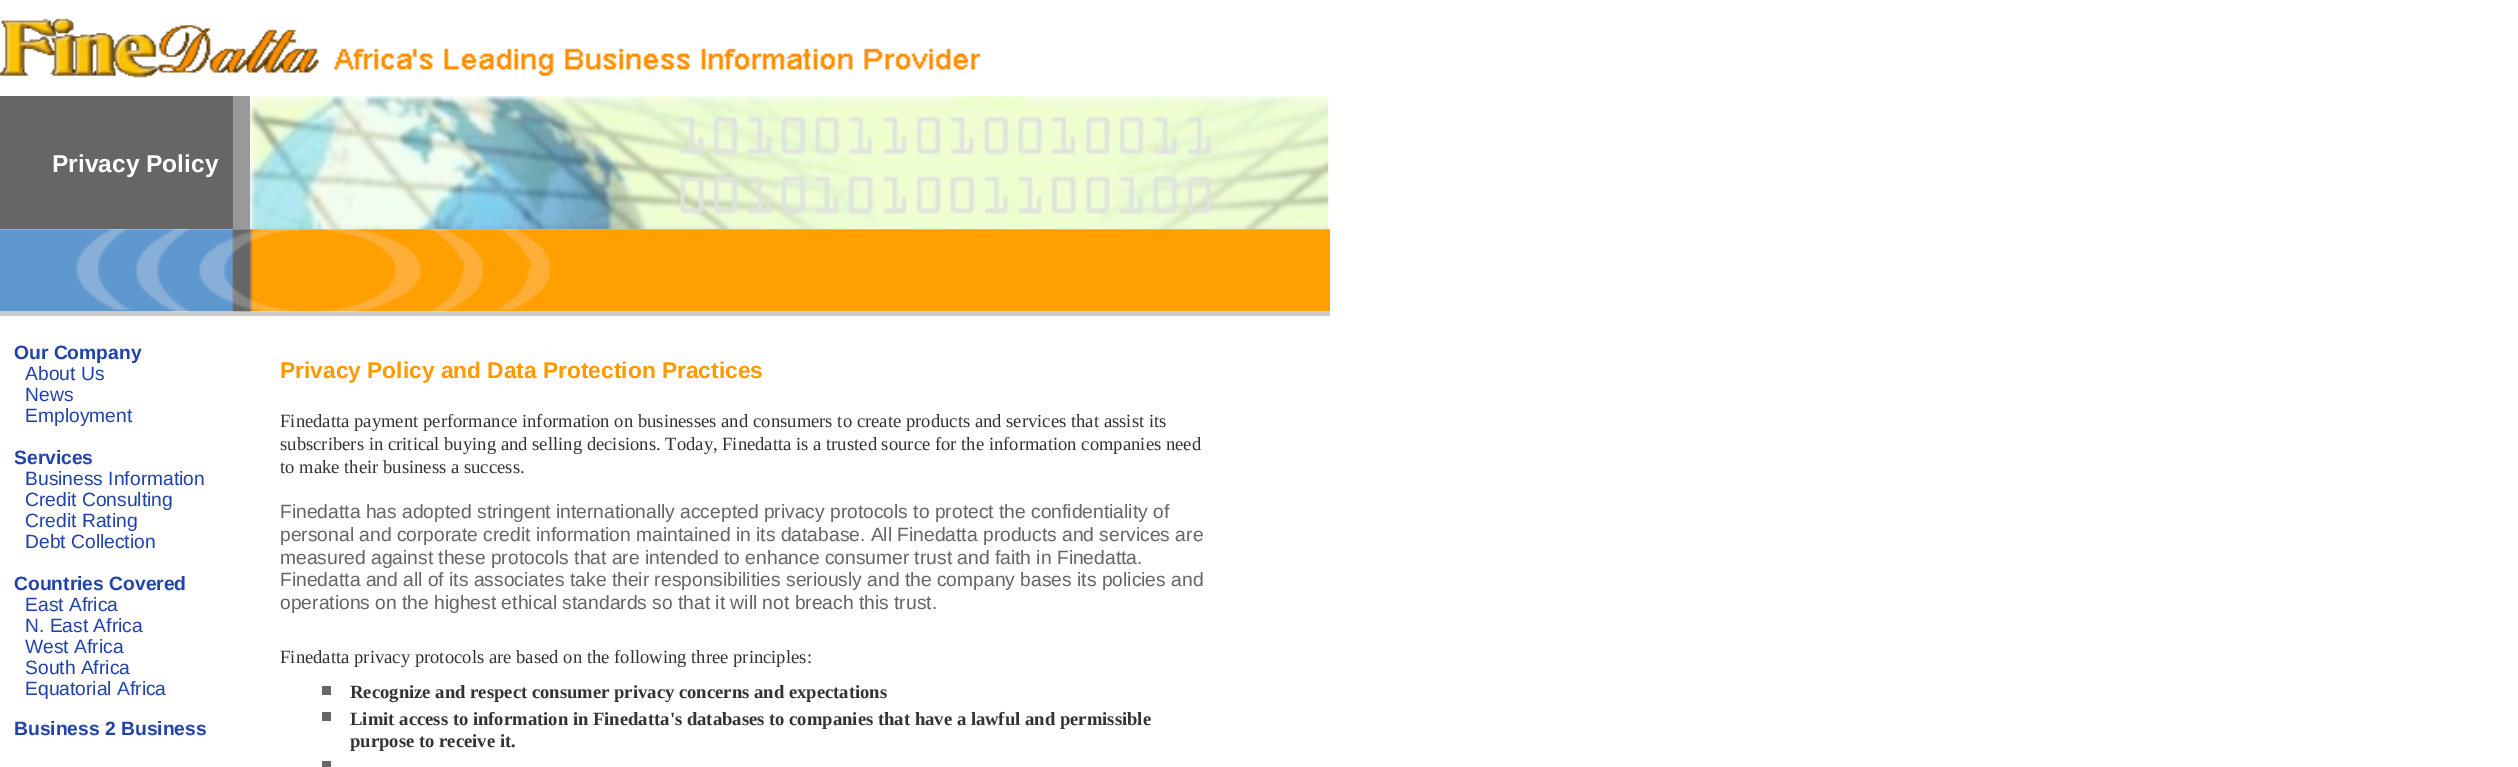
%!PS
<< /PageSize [2518 767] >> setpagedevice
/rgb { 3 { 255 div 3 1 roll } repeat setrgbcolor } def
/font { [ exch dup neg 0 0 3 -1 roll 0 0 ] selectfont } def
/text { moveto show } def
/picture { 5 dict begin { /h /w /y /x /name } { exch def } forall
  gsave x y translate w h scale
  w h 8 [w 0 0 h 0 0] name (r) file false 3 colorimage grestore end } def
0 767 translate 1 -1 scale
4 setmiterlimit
255 255 255 rgb
0 0 2518 767 rectfill
(img_01.rgb) 0 18 981 60 picture
102 102 102 rgb
0 96 233 133 rectfill
153 153 153 rgb
233 96 17 133 rectfill
(img_02.rgb) 250 96 1079 134 picture
(img_03.rgb) 0 229 1330 83 picture
204 204 204 rgb
0 312 1330 4 rectfill
102 102 102 rgb
322 686 9 9 rectfill
322 712 9 9 rectfill
322 761 9 6 rectfill
/LiberationSans-Bold 24.5 font
255 255 255 rgb
(Privacy Policy) 52 172 text
/LiberationSans-Bold 19.25 font
34 68 170 rgb
(Our Company) 14 359 text
/LiberationSans-Regular 19.25 font
(About Us) 25 380 text
(News) 25 401 text
(Employment) 25 422 text
/LiberationSans-Bold 19.25 font
(Services) 14 464 text
/LiberationSans-Regular 19.25 font
(Business Information) 25 485 text
(Credit Consulting) 25 506 text
(Credit Rating) 25 527 text
(Debt Collection) 25 548 text
/LiberationSans-Bold 19.25 font
(Countries Covered) 14 590 text
/LiberationSans-Regular 19.25 font
(East Africa) 25 611 text
(N. East Africa) 25 632 text
(West Africa) 25 653 text
(South Africa) 25 674 text
(Equatorial Africa) 25 695 text
/LiberationSans-Bold 19.25 font
(Business 2 Business) 14 735 text
/LiberationSans-Bold 22.75 font
255 153 0 rgb
(Privacy Policy and Data Protection Practices) 280 378 text
/LiberationSerif-Regular 18.65 font
51 51 51 rgb
(Finedatta payment performance information on businesses and) 280 427 text
(consumers to create products and services that assist its) 753 427 text
(subscribers in critical buying and selling decisions. Today,) 280 450 text
(Finedatta is a trusted source for the information companies need) 722 450 text
(to make their business a success.) 280 473 text
/LiberationSans-Regular 19.25 font
102 102 102 rgb
(Finedatta has adopted stringent internationally accepted privacy protocols to protect the confidentiality of) 280 518 text
(personal and corporate credit information maintained in its database. All Finedatta products and services are) 280 541 text
(measured against these protocols that are intended to enhance consumer trust and faith in Finedatta.) 280 564 text
(Finedatta and all of its associates take their responsibilities seriously and the company bases its policies and) 280 586 text
(operations on the highest ethical standards so that it will not breach this trust.) 280 609 text
/LiberationSerif-Regular 18.65 font
51 51 51 rgb
(Finedatta privacy protocols are based on the following three) 280 663 text
(principles:) 733 663 text
/LiberationSerif-Bold 18.65 font
(Recognize and respect consumer privacy concerns and expectations) 350 698 text
(Limit access to information in Finedatta's databases to companies that have a lawful and permissible) 350 725 text
(purpose to receive it.) 350 747 text
showpage
